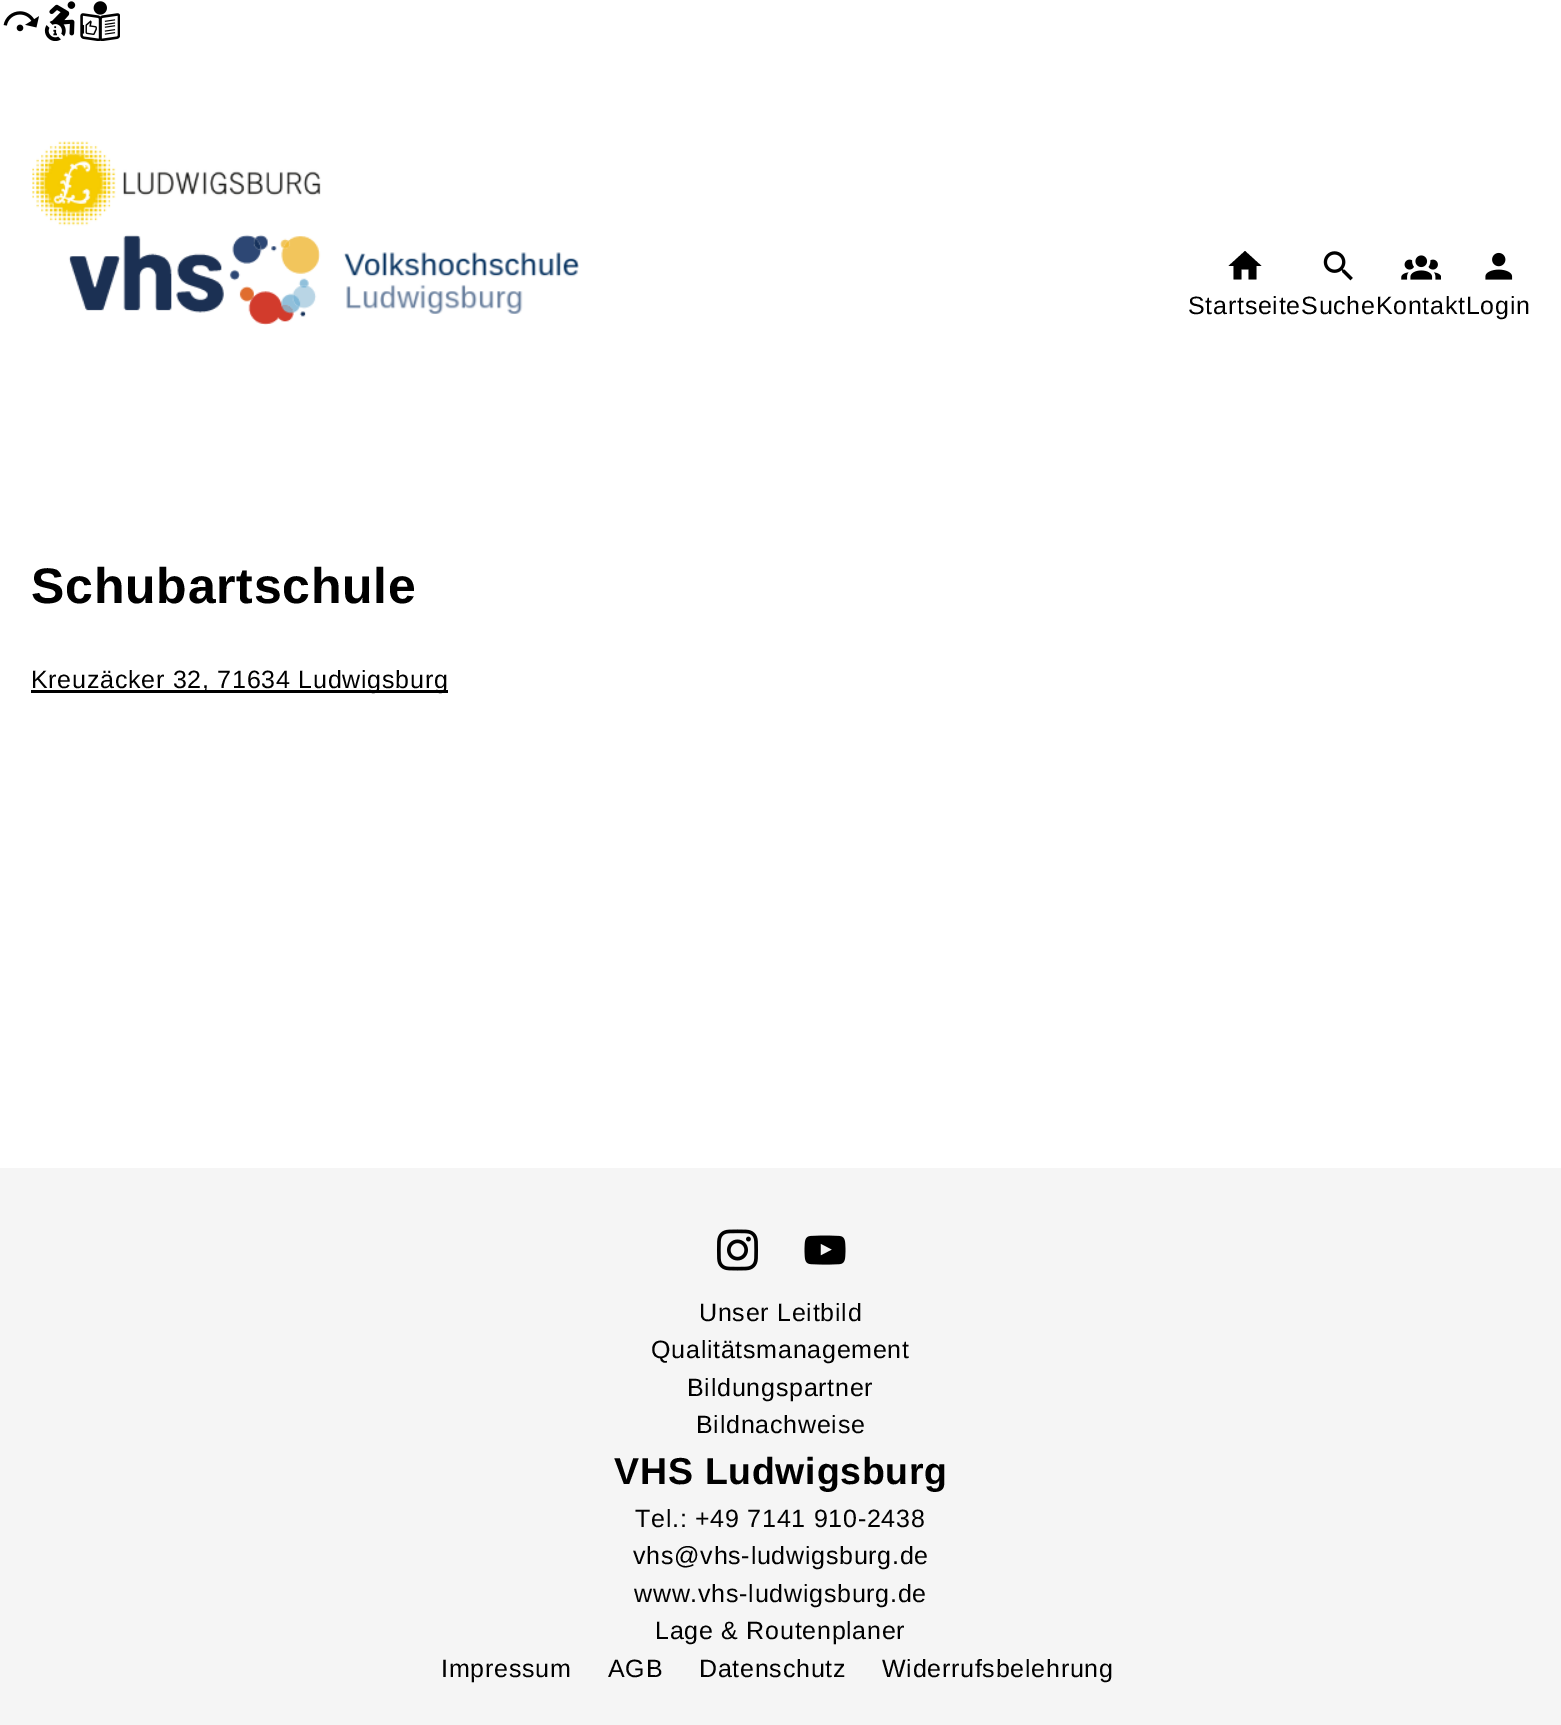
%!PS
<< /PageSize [1561 1725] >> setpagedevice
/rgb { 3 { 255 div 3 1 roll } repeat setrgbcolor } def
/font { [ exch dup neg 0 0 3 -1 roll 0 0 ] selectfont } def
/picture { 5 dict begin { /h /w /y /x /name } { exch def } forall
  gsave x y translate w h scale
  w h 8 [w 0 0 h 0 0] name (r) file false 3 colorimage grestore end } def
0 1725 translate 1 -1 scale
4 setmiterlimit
255 255 255 rgb
0 0 1561 1725 rectfill
(img_01.rgb) 3 11 36 21 picture
(img_02.rgb) 44 1 32 40 picture
(img_03.rgb) 80 1 40 40 picture
(img_04.rgb) 32 141 547 184 picture
(img_05.rgb) 1323 251 30 30 picture
(img_06.rgb) 1401 255 40 25 picture
(img_07.rgb) 1485 252 28 28 picture
0 0 0 rgb
1241.5 279.5 moveto 0 -10 rlineto 7 0 rlineto 0 10 rlineto 8 0 rlineto 0 -13.5 rlineto 5 0 rlineto -16.5 -15 rlineto -16.5 15 rlineto 5 0 rlineto 0 13.5 rlineto closepath fill
31 690 417 3 rectfill
245 245 245 rgb
0 1168 1561 557 rectfill
(img_08.rgb) 717 1229 41 42 picture
(img_09.rgb) 804 1235 42 30 picture
/LiberationSans-Regular 25 font
0 0 0 rgb
1188 314 moveto 0.75 0 (StartseiteSucheKontaktLogin) ashow
/LiberationSans-Bold 50 font
31 603 moveto 0.75 0 (Schubartschule) ashow
/LiberationSans-Regular 25 font
31 688 moveto 0.75 0 (Kreuzäcker 32, 71634 Ludwigsburg) ashow
699 1321 moveto 0.75 0 (Unser Leitbild) ashow
651 1358 moveto 0.75 0 (Qualitätsmanagement) ashow
687 1396 moveto 0.75 0 (Bildungspartner) ashow
696 1433 moveto 0.75 0 (Bildnachweise) ashow
/LiberationSans-Bold 37.5 font
614 1484 moveto 0.75 0 (VHS Ludwigsburg) ashow
/LiberationSans-Regular 25 font
635 1527 moveto 0.75 0 (Tel.: +49 7141 910-2438) ashow
633 1564 moveto 0.75 0 (vhs@vhs-ludwigsburg.de) ashow
634 1602 moveto 0.75 0 (www.vhs-ludwigsburg.de) ashow
655 1639 moveto 0.75 0 (Lage & Routenplaner) ashow
441 1677 moveto 0.75 0 (Impressum) ashow
608 1677 moveto 0.75 0 (AGB) ashow
699 1677 moveto 0.75 0 (Datenschutz) ashow
882 1677 moveto 0.75 0 (Widerrufsbelehrung) ashow
showpage
